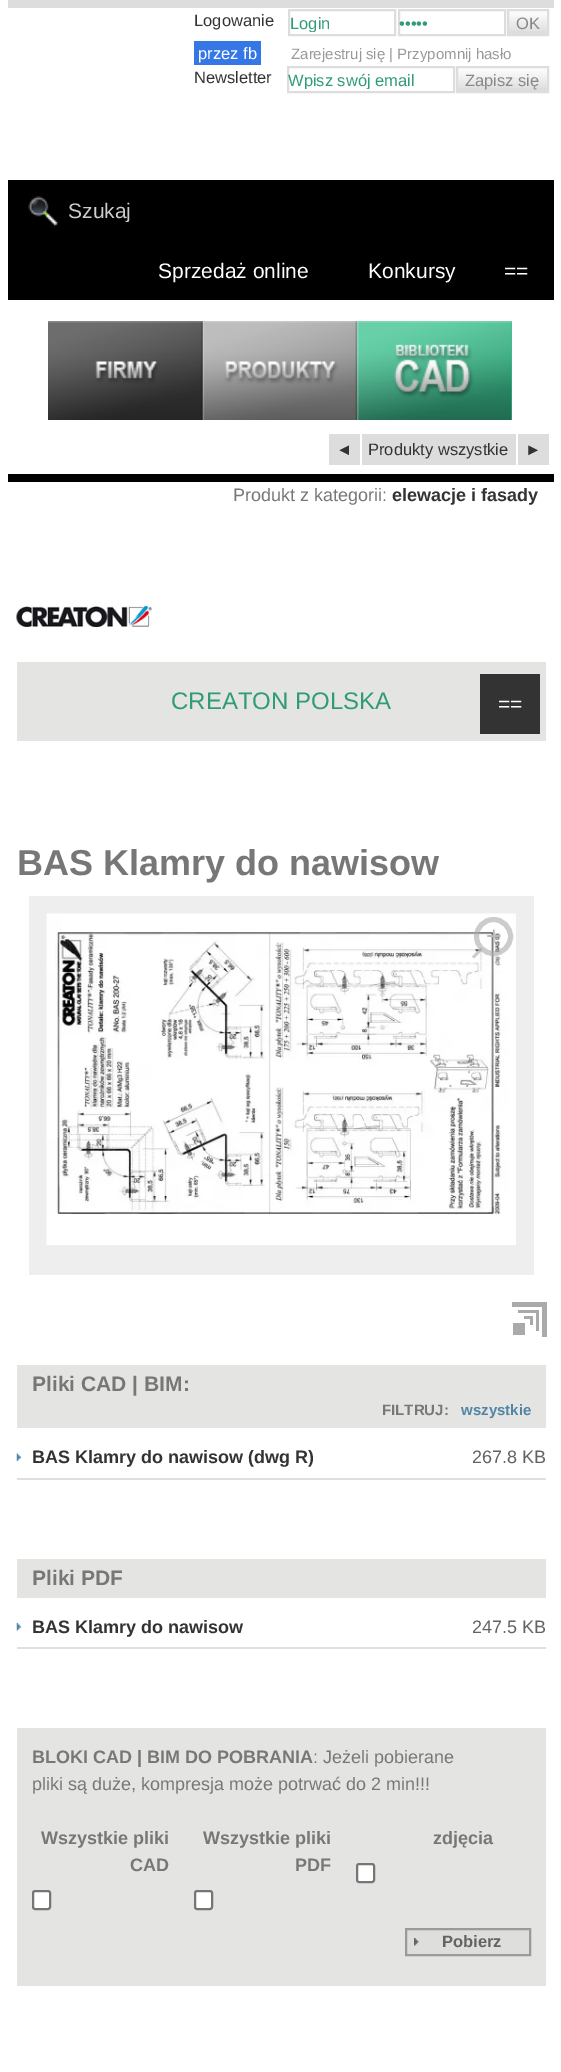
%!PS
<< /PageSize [561 2072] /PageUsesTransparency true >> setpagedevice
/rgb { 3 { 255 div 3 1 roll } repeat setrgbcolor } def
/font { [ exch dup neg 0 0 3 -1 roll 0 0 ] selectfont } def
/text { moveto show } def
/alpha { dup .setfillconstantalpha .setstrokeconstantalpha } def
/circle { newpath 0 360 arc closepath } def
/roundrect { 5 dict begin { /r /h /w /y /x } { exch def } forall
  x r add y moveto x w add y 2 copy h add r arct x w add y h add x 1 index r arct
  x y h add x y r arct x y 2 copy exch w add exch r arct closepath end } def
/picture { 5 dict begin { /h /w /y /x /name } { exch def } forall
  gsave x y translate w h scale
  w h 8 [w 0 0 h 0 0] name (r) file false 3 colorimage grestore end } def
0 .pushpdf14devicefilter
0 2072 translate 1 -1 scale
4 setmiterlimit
255 255 255 rgb
0 0 561 2072 rectfill
221 221 221 rgb
8 0 546 8 rectfill
2 setlinewidth
289 10 106 25 rectstroke
399 10 106 25 rectstroke
509 11 38 23 rectfill
(img_01.rgb) 509 11 38 20 picture
508 10 40 25 rectstroke
53 120 229 rgb
194 41 67 24 rectfill
221 221 221 rgb
288 67 166 25 rectstroke
458 68 89 23 rectfill
(img_02.rgb) 458 68 89 20 picture
457 67 91 25 rectstroke
0 0 0 rgb
8 180 546 120 rectfill
(img_03.rgb) 28 196 31 31 picture
68 68 68 rgb
48 321 155 99 rectfill
(img_04.rgb) 48 321 155 99 picture
170 170 170 rgb
203 321 154 99 rectfill
(img_05.rgb) 202 321 155 99 picture
60 195 145 rgb
357 321 155 99 rectfill
(img_06.rgb) 357 321 155 99 picture
221 221 221 rgb
329 434 31 31 rectfill
362 434 154 31 rectfill
518 434 31 31 rectfill
238 238 238 rgb
29 896 505 379 rectfill
(img_07.rgb) 46 913 470 332 picture
0.6 alpha
170 170 170 rgb
5 setlinewidth
493.5 936.5 17 circle stroke
472 956.5 moveto 8.5 -8.5 rlineto 2 2 rlineto -8.5 8.5 rlineto closepath fill
1 alpha
512 1302 34 5 rectfill
542 1302 5 35 rectfill
518 1310 21 3 rectfill
536 1310 3 21 rectfill
524 1316 9 3 rectfill
530 1316 3 9 rectfill
513 1323 12 12 rectfill
228 228 227 rgb
17 1365 529 63 rectfill
(img_08.rgb) 16 1453 5 8 picture
223 223 222 rgb
17 1478 529 2 rectfill
228 228 227 rgb
17 1559 529 39 rectfill
(img_09.rgb) 16 1623 5 8 picture
223 223 222 rgb
17 1647 529 2 rectfill
228 228 227 rgb
17 1728 529 258 rectfill
255 255 255 rgb
33 1891 17 18 2 roundrect gsave fill grestore
118 118 118 rgb
2 setlinewidth
stroke
255 255 255 rgb
195 1891 17 18 2 roundrect gsave fill grestore
118 118 118 rgb
stroke
255 255 255 rgb
357 1864 17 18 2 roundrect gsave fill grestore
118 118 118 rgb
stroke
222 222 221 rgb
407 1930 122 24 rectfill
(img_10.rgb) 414 1938 5 8 picture
154 154 154 rgb
406 1929 124 26 rectstroke
0 0 0 rgb
8 474 546 8 rectfill
(img_11.rgb) 16 606 136 21 picture
228 228 227 rgb
17 662 529 79 rectfill
51 51 51 rgb
480 674 60 60 rectfill
/LiberationSans-Regular 16.5 font
(Logowanie) 194 26 text
gsave
290 14 105 18 rectclip
48 156 116 rgb
(Login) 290 29 text
grestore
48 156 116 rgb
(•••••) 399 29 text
136 136 136 rgb
(OK) 516 29 text
255 255 255 rgb
(przez fb) 198 59 text
/LiberationSans-Regular 15 font
153 153 153 rgb
(Zarejestruj się | Przypomnij hasło) 291 59 text
/LiberationSans-Regular 16.5 font
51 51 51 rgb
(Newsletter) 194 83 text
gsave
288 71 165 18 rectclip
48 156 116 rgb
(Wpisz swój email) 288 86 text
grestore
136 136 136 rgb
(Zapisz się) 465 86 text
gsave
68 198 267 24 rectclip
/LiberationSans-Regular 21 font
204 204 204 rgb
(Szukaj) 68 218 text
grestore
/LiberationSans-Regular 21 font
255 255 255 rgb
(Sprzedaż online) 158 278 text
(Konkursy) 368 278 text
(==) 504 278 text
/LiberationSans-Regular 16.5 font
51 51 51 rgb
(◄) 336 455 text
(Produkty wszystkie) 368 455 text
(►) 525 455 text
/LiberationSans-Regular 18 font
119 119 119 rgb
(Produkt z kategorii:) 233 501 text
/LiberationSans-Bold 18 font
51 51 51 rgb
(elewacje i fasady) 392 501 text
/LiberationSans-Bold 36 font
119 119 119 rgb
(BAS Klamry do nawisow) 17 875 text
/LiberationSans-Regular 27 font
184 184 184 rgb
(+) 486 945 text
/LiberationSans-Bold 21 font
119 119 119 rgb
(Pliki CAD | BIM:) 32 1391 text
/LiberationSans-Bold 15 font
(FILTRUJ:) 382 1415 text
81 133 165 rgb
(wszystkie) 461 1415 text
/LiberationSans-Bold 18 font
51 51 51 rgb
(BAS Klamry do nawisow \(dwg R\)) 32 1463 text
/LiberationSans-Regular 18 font
99 99 99 rgb
(267.8 KB) 472 1463 text
/LiberationSans-Bold 21 font
119 119 119 rgb
(Pliki PDF) 32 1585 text
/LiberationSans-Bold 18 font
51 51 51 rgb
(BAS Klamry do nawisow) 32 1633 text
/LiberationSans-Regular 18 font
99 99 99 rgb
(247.5 KB) 472 1633 text
/LiberationSans-Bold 18 font
119 119 119 rgb
(BLOKI CAD | BIM DO POBRANIA) 32 1763 text
/LiberationSans-Regular 18 font
(: Jeżeli pobierane) 313 1763 text
(pliki są duże, kompresja może potrwać do 2 min!!!) 32 1790 text
/LiberationSans-Bold 18 font
(Wszystkie pliki) 41 1844 text
(CAD) 130 1871 text
(Wszystkie pliki) 203 1844 text
(PDF) 295 1871 text
(zdjęcia) 433 1844 text
/LiberationSans-Bold 16.5 font
99 99 99 rgb
(Pobierz) 442 1947 text
/LiberationSans-Regular 24 font
48 156 116 rgb
(CREATON POLSKA) 171 709 text
/LiberationSans-Regular 21 font
255 255 255 rgb
(==) 498 711 text
.poppdf14devicefilter showpage
